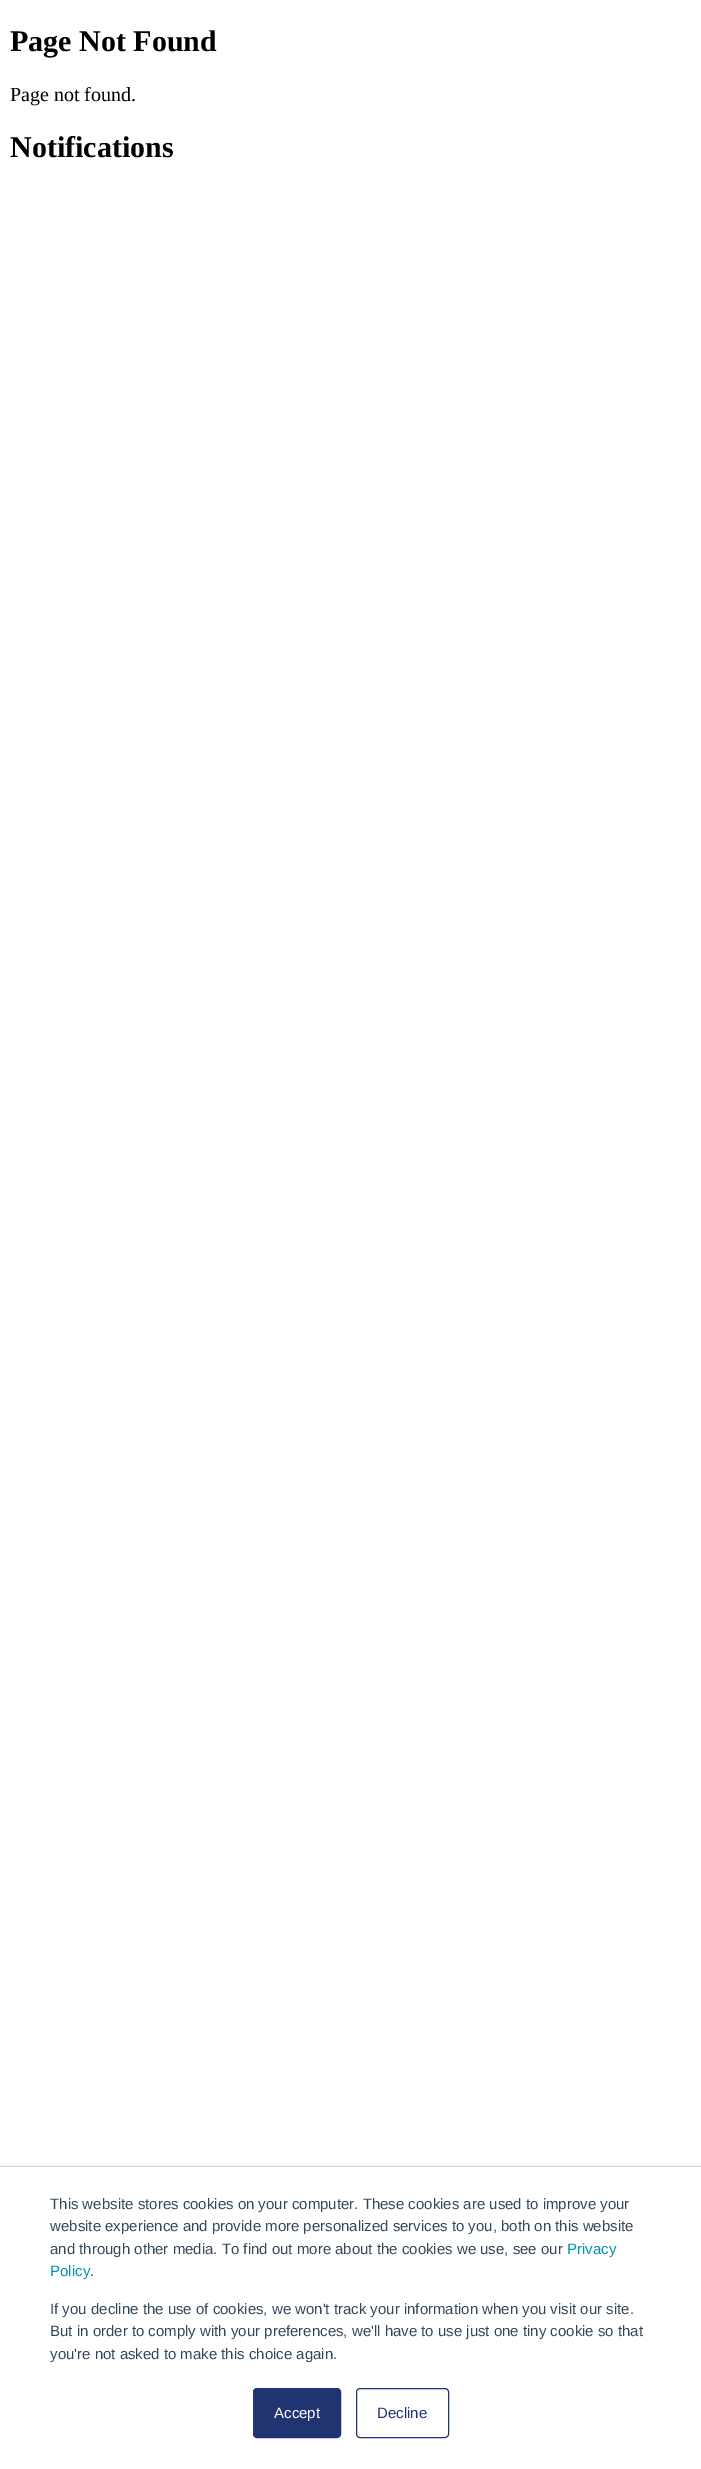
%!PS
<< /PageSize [701 2469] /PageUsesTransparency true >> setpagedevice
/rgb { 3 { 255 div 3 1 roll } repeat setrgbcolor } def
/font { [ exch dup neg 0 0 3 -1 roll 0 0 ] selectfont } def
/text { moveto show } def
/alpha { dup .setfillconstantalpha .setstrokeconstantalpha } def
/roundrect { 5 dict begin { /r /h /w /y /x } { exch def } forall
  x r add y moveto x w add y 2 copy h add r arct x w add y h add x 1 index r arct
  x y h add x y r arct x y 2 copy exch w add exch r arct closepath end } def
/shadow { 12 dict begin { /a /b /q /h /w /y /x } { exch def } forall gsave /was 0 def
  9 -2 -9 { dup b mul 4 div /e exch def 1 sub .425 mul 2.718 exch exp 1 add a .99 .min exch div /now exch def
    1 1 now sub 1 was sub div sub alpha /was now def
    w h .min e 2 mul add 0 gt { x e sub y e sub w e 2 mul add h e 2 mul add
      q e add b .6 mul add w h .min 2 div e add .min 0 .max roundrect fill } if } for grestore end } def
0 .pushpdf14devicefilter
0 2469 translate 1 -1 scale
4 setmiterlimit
255 255 255 rgb
0 0 701 2469 rectfill
234 240 246 rgb
0 2165 701 304 0 2 1 shadow
255 255 255 rgb
0 2167 701 302 rectfill
203 214 226 rgb
0 2166 701 1 rectfill
32 52 114 rgb
253.5 2388.5 87 49 3.5 roundrect gsave fill grestore
stroke
356.5 2388.5 92 49 3.5 roundrect stroke
/LiberationSerif-Bold 30 font
0 0 0 rgb
(Page Not Found) 10 51 text
/LiberationSerif-Regular 20 font
(Page not found.) 10 101 text
/LiberationSerif-Bold 30 font
(Notifications) 10 157 text
/LiberationSans-Regular 15 font
51 71 91 rgb
(This website stores cookies on your computer. These cookies are used to improve your) 50 2209 text
(website experience and provide more personalized services to you, both on this website) 50 2231 text
(and through other media. To find out more about the cookies we use, see our) 50 2254 text
0 145 174 rgb
(Privacy) 567 2254 text
(Policy) 50 2276 text
51 71 91 rgb
(.) 90 2276 text
(If you decline the use of cookies, we won't track your information when you visit our site.) 50 2314 text
(But in order to comply with your preferences, we'll have to use just one tiny cookie so that) 50 2336 text
(you're not asked to make this choice again.) 50 2359 text
255 255 255 rgb
(Accept) 274 2418 text
32 52 114 rgb
(Decline) 377 2418 text
.poppdf14devicefilter showpage
